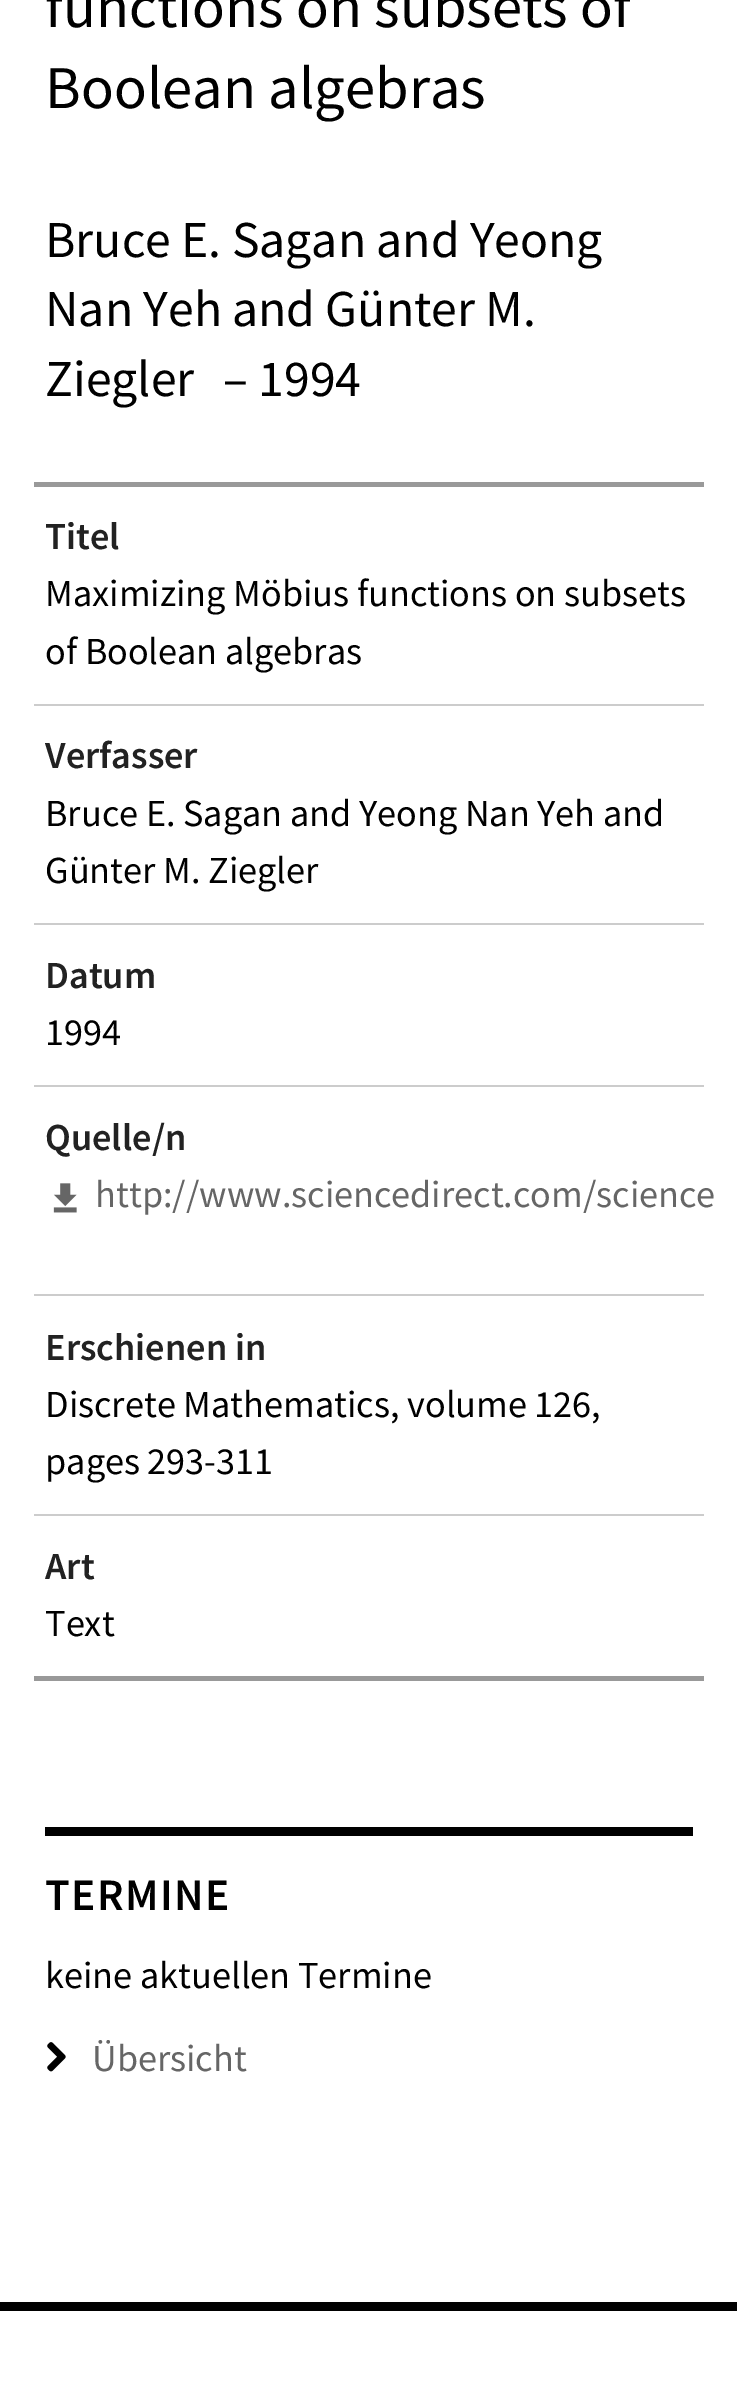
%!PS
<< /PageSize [737 2386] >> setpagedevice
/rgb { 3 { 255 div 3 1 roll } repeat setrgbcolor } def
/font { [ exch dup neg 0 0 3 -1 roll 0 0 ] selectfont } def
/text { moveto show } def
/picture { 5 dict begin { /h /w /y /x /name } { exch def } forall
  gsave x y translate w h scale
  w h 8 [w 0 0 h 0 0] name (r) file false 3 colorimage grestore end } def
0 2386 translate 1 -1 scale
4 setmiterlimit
255 255 255 rgb
0 0 737 2386 rectfill
153 153 153 rgb
34 482 670 5 rectfill
204 204 204 rgb
34 704 670 2 rectfill
34 923 670 2 rectfill
34 1085 670 2 rectfill
(img_01.rgb) 53 1183 24 30 picture
34 1294 670 2 rectfill
34 1514 670 2 rectfill
153 153 153 rgb
34 1676 670 5 rectfill
0 0 0 rgb
45 1827 648 9 rectfill
(img_02.rgb) 47 2042 19 30 picture
0 2302 737 9 rectfill
/SourceSansPro-Regular 60.75 font
(functions on subsets of) 45 27 text
(Boolean algebras) 45 108 text
/SourceSansPro-Regular 51.75 font
(Bruce E. Sagan and Yeong) 45 257 text
(Nan Yeh and Günter M.) 45 326 text
(Ziegler) 45 396 text
(– 1994) 223 396 text
/SourceSansPro-SemiBold 38.25 font
34 34 34 rgb
(Titel) 45 549 text
/SourceSansPro-Regular 38.25 font
0 0 0 rgb
(Maximizing Möbius functions on subsets) 45 606 text
(of Boolean algebras) 45 664 text
/SourceSansPro-SemiBold 38.25 font
34 34 34 rgb
(Verfasser) 45 768 text
/SourceSansPro-Regular 38.25 font
0 0 0 rgb
(Bruce E. Sagan and Yeong Nan Yeh and) 45 826 text
(Günter M. Ziegler) 45 883 text
/SourceSansPro-SemiBold 38.25 font
34 34 34 rgb
(Datum) 45 988 text
/SourceSansPro-Regular 38.25 font
0 0 0 rgb
(1994) 45 1045 text
/SourceSansPro-SemiBold 38.25 font
34 34 34 rgb
(Quelle/n) 45 1150 text
/SourceSansPro-Regular 38.25 font
102 102 102 rgb
(http://www.sciencedirect.com/science) 95 1207 text
/SourceSansPro-SemiBold 38.25 font
34 34 34 rgb
(Erschienen in) 45 1360 text
/SourceSansPro-Regular 38.25 font
0 0 0 rgb
(Discrete Mathematics, volume 126,) 45 1417 text
(pages 293-311) 45 1474 text
/SourceSansPro-SemiBold 38.25 font
34 34 34 rgb
(Art) 45 1579 text
/SourceSansPro-Regular 38.25 font
0 0 0 rgb
(Text) 45 1636 text
/SourceSansPro-SemiBold 45 font
45 1910 moveto 1.5 0 (TERMINE) ashow
/SourceSansPro-Regular 38.25 font
(keine aktuellen Termine) 45 1988 text
102 102 102 rgb
(Übersicht) 92 2071 text
showpage
